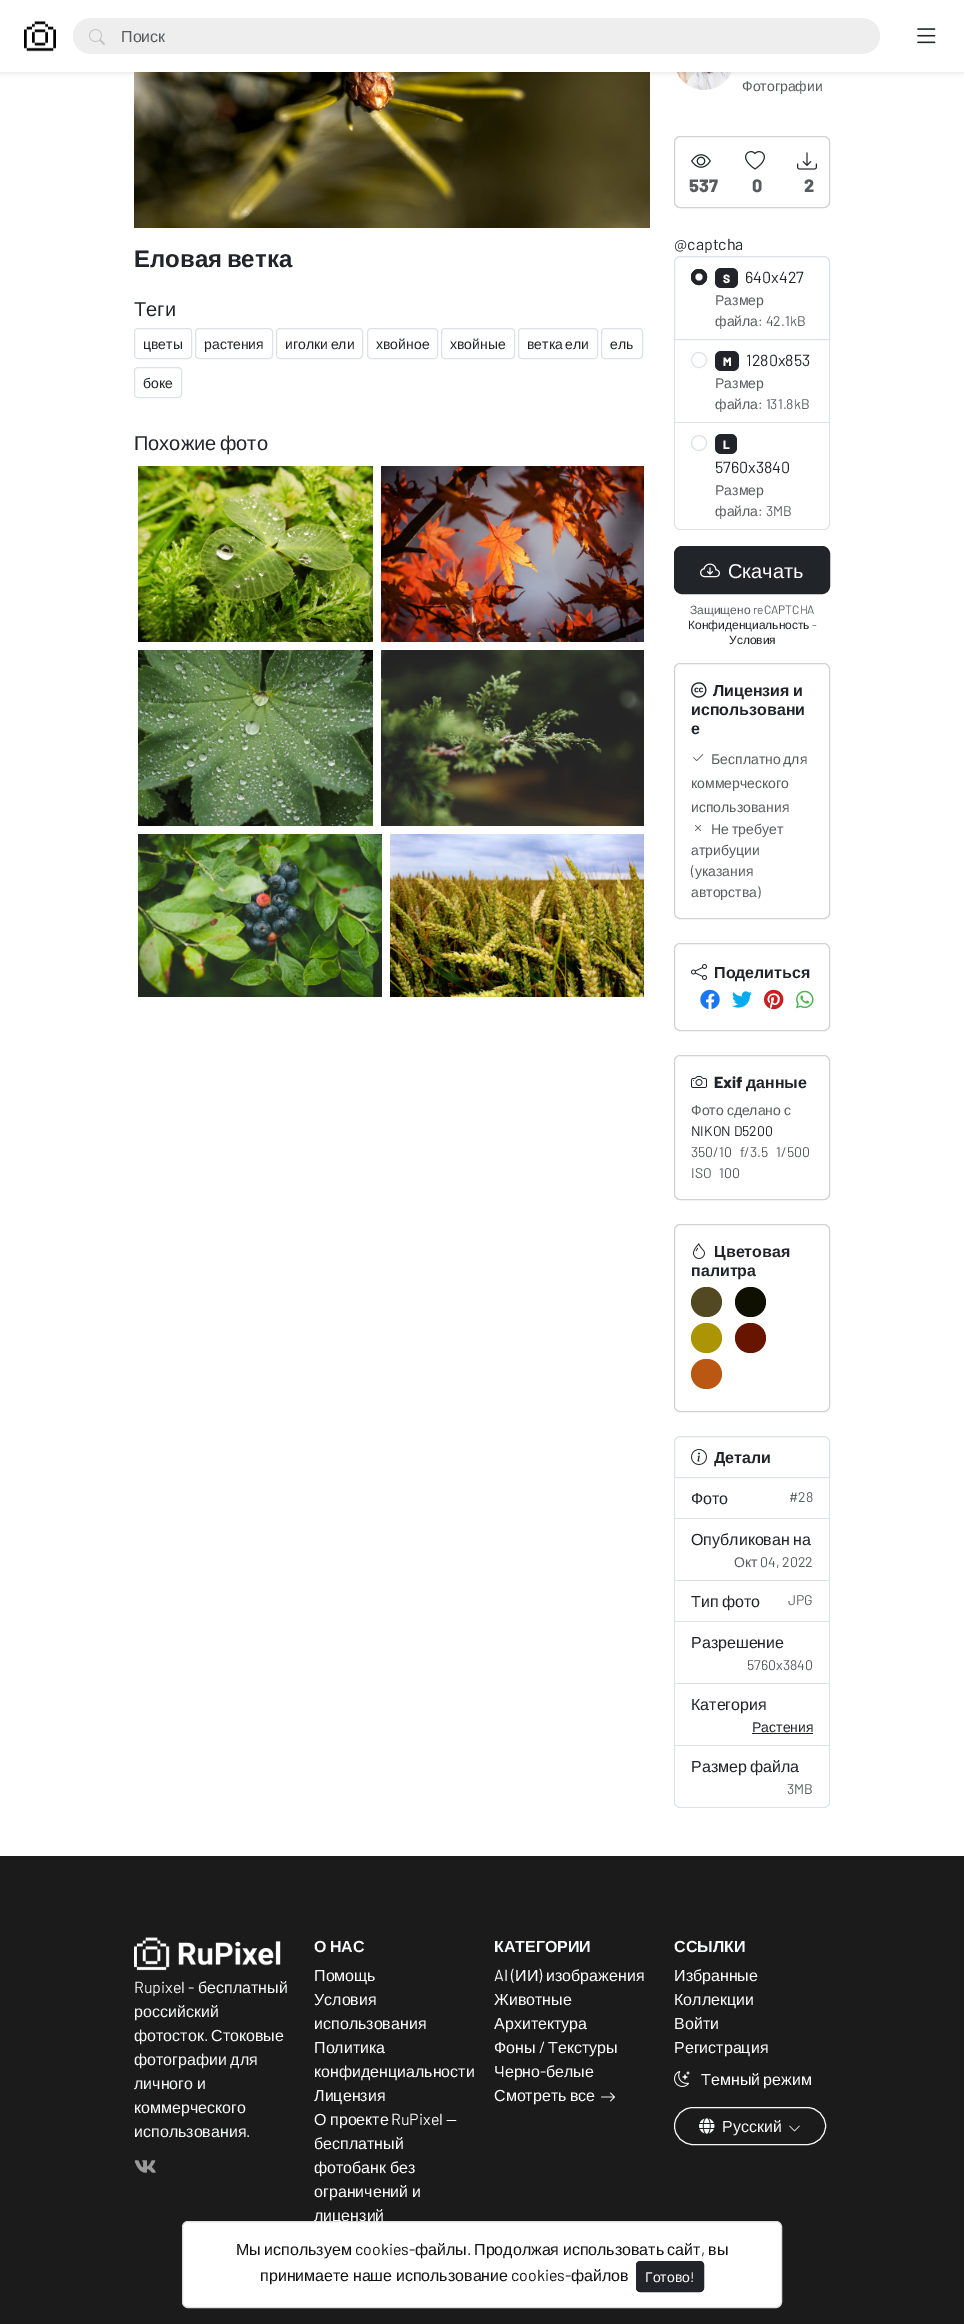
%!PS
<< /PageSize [964 2324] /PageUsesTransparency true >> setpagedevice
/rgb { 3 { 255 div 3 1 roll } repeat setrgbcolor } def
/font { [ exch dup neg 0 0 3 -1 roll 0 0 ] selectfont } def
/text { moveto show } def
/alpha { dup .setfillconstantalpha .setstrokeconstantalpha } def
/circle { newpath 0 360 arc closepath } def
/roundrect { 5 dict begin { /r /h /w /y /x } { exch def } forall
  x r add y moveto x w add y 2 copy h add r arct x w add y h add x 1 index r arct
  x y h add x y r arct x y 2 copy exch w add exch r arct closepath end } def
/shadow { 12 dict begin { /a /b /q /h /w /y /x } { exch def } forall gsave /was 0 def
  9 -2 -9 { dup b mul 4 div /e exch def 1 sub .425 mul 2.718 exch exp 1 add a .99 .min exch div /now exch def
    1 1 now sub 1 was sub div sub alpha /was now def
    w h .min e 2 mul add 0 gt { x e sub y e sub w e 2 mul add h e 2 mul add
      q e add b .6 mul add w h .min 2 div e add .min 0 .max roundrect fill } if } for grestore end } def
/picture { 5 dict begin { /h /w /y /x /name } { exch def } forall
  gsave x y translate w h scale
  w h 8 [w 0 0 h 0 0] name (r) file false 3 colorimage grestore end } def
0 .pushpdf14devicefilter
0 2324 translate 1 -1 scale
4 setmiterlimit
255 255 255 rgb
0 0 964 2324 rectfill
(img_04.rgb) 134 72 516 156 picture
(img_11.rgb) 676 72 56 18 picture
0 0 0 rgb
0 2 964 72 0 2 0.07 shadow
255 255 255 rgb
0 0 964 72 rectfill
(img_01.rgb) 24 21 32 31 picture
238 238 238 rgb
73 18 807 36 18 roundrect fill
(img_02.rgb) 89 29 16 16 picture
(img_03.rgb) 917 28 19 16 picture
222 226 230 rgb
134.5 328.5 57 30 3.5 roundrect stroke
195.5 328.5 77 30 3.5 roundrect stroke
276.5 328.5 86 30 3.5 roundrect stroke
367.5 328.5 70 30 3.5 roundrect stroke
441.5 328.5 73 30 3.5 roundrect stroke
518.5 328.5 79 30 3.5 roundrect stroke
601.5 328.5 41 30 3.5 roundrect stroke
134.5 367.5 47 30 3.5 roundrect stroke
(img_05.rgb) 138 466 235 176 picture
(img_06.rgb) 381 466 263 176 picture
(img_07.rgb) 138 650 235 176 picture
(img_08.rgb) 381 650 263 176 picture
(img_09.rgb) 138 834 244 163 picture
(img_10.rgb) 390 834 254 163 picture
210 210 210 rgb
674.5 136.5 155 71 5.5 roundrect stroke
(img_12.rgb) 691 154 20 14 picture
(img_13.rgb) 745 151 20 19 picture
(img_14.rgb) 797 152 20 18 picture
222 226 230 rgb
680 256.5 moveto 144 0 rlineto 3 0 5.5 2.5 5.5 5.5 rcurveto 0 77.5 rlineto -155 0 rlineto 0 -77.5 rlineto 0 -3 2.5 -5.5 5.5 -5.5 rcurveto closepath stroke
33 37 41 rgb
699 277 8 circle fill
255 255 255 rgb
699 277 3.5 circle fill
33 37 41 rgb
699 277 7.5 circle stroke
715 268 23 20 6 roundrect fill
222 226 230 rgb
829 340 1 83 rectfill
674 422 156 1 rectfill
674 340 1 83 rectfill
699 360 7.5 circle stroke
33 37 41 rgb
715 351 24 20 6 roundrect fill
222 226 230 rgb
674 423 moveto 156 0 rlineto 0 101 rlineto 0 3 -3 6 -6 6 rcurveto -144 0 rlineto -3 0 -6 -3 -6 -6 rcurveto closepath 675 423 moveto 154 0 rlineto 0 101 rlineto 0 3 -2 5 -5 5 rcurveto -144 0 rlineto -3 0 -5 -2 -5 -5 rcurveto closepath eofill
699 443 7.5 circle stroke
33 37 41 rgb
715 434 22 20 6 roundrect fill
674.5 546.5 155 47 7.5 roundrect gsave fill grestore
stroke
(img_15.rgb) 700 563 20 15 picture
210 210 210 rgb
674.5 663.5 155 255 5.5 roundrect stroke
(img_16.rgb) 691 682 16 16 picture
(img_17.rgb) 693 754 11 7 picture
(img_18.rgb) 695 825 6 6 picture
674.5 943.5 155 87 5.5 roundrect stroke
(img_19.rgb) 691 964 16 16 picture
(img_20.rgb) 700 989 20 20 picture
(img_21.rgb) 732 991 20 17 picture
(img_22.rgb) 764 989 20 21 picture
(img_23.rgb) 796 990 18 19 picture
674.5 1055.5 155 144 5.5 roundrect stroke
(img_24.rgb) 691 1076 16 12 picture
674.5 1224.5 155 187 5.5 roundrect stroke
(img_25.rgb) 693 1243 12 16 picture
82 73 34 rgb
691 1287 31 30 15 roundrect fill
15 16 2 rgb
735 1287 31 30 15 roundrect fill
171 149 4 rgb
691 1323 31 30 15 roundrect fill
103 20 0 rgb
735 1323 31 30 15 roundrect fill
186 87 19 rgb
691 1359 31 30 15 roundrect fill
222 226 230 rgb
680 1436.5 moveto 144 0 rlineto 3 0 5.5 2.5 5.5 5.5 rcurveto 0 35.5 rlineto -155 0 rlineto 0 -35.5 rlineto 0 -3 2.5 -5.5 5.5 -5.5 rcurveto closepath stroke
(img_26.rgb) 691 1449 16 16 picture
829 1478 1 268 rectfill
674 1518 156 1 rectfill
674 1478 1 41 rectfill
674 1580 156 1 rectfill
674 1519 1 62 rectfill
674 1621 156 1 rectfill
674 1581 1 41 rectfill
674 1683 156 1 rectfill
674 1622 1 62 rectfill
674 1745 156 1 rectfill
674 1684 1 62 rectfill
33 37 41 rgb
752 1733 61 1 rectfill
222 226 230 rgb
674 1746 moveto 156 0 rlineto 0 56 rlineto 0 3 -3 6 -6 6 rcurveto -144 0 rlineto -3 0 -6 -3 -6 -6 rcurveto closepath 675 1746 moveto 154 0 rlineto 0 56 rlineto 0 3 -2 5 -5 5 rcurveto -144 0 rlineto -3 0 -5 -2 -5 -5 rcurveto closepath eofill
27 27 27 rgb
0 1856 964 468 rectfill
(img_27.rgb) 134 1937 147 34 picture
(img_28.rgb) 134 2160 22 13 picture
(img_29.rgb) 601 2092 14 10 picture
(img_30.rgb) 674 2071 16 16 picture
248 249 250 rgb
674.5 2107.5 151 37 18.5 roundrect stroke
(img_31.rgb) 699 2118 16 16 picture
(img_32.rgb) 789 2125 11 7 picture
0 0 0 rgb
182 2223 600 87 6 2 0.07 shadow
255 255 255 rgb
182.5 2221.5 599 86 5.5 roundrect gsave fill grestore
221 221 221 rgb
stroke
33 37 41 rgb
636.5 2261.5 67 30 3.5 roundrect gsave fill grestore
stroke
/LiberationSans-Regular 16 font
89 92 95 rgb
(Поиск) 121 42 text
/LiberationSans-Bold 24 font
33 37 41 rgb
134 267 moveto -2 0 32 (Еловая ветка) widthshow
/LiberationSans-Regular 20 font
(Теги) 134 316 text
/LiberationSans-Regular 14 font
(цветы) 143 349 text
(растения) 204 349 text
285 349 moveto -1 0 32 (иголки ели) widthshow
(хвойное) 376 349 text
(хвойные) 450 349 text
527 349 moveto -1 0 32 (ветка ели) widthshow
(ель) 610 349 text
(боке) 143 388 text
/LiberationSans-Regular 20 font
134 450 moveto -2 0 32 (Похожие фото) widthshow
/LiberationSans-Regular 14 font
89 92 95 rgb
(Фотографии) 742 91 text
/Barlow-ExtraBold 18 font
(537) 689 192 text
(0) 752 192 text
(2) 804 192 text
/Barlow-Regular 16 font
33 37 41 rgb
(@captcha) 674 250 text
/Barlow-ExtraBold 12 font
255 255 255 rgb
(S) 723 283 text
/Barlow-Regular 16 font
33 37 41 rgb
(640x427) 745 283 text
/LiberationSans-Regular 14 font
89 92 95 rgb
(Размер) 715 305 text
(файла) 715 326 text
/Barlow-Regular 14 font
(: 42.1kB) 758 326 text
/Barlow-ExtraBold 12 font
255 255 255 rgb
(M) 723 366 text
/Barlow-Regular 16 font
33 37 41 rgb
(1280x853) 746 366 text
/LiberationSans-Regular 14 font
89 92 95 rgb
(Размер) 715 388 text
(файла) 715 409 text
/Barlow-Regular 14 font
(: 131.8kB) 758 409 text
/Barlow-ExtraBold 12 font
255 255 255 rgb
(L) 723 449 text
/Barlow-Regular 16 font
33 37 41 rgb
(5760x3840) 715 473 text
/LiberationSans-Regular 14 font
89 92 95 rgb
(Размер) 715 495 text
(файла) 715 516 text
/Barlow-Regular 14 font
(: 3MB) 758 516 text
/LiberationSans-Regular 20 font
255 255 255 rgb
(Скачать) 728 578 text
/LiberationSans-Regular 12 font
89 92 95 rgb
(Защищено) 690 614 text
/Barlow-Regular 12 font
(reCAPTCHA) 753 614 text
/LiberationSans-Regular 12 font
33 37 41 rgb
(Конфиденциальность) 688 629 text
/Barlow-Regular 12 font
89 92 95 rgb
(-) 812 629 text
/LiberationSans-Regular 12 font
33 37 41 rgb
(Условия) 729 644 text
/LiberationSans-Bold 16 font
713 696 moveto -1 0 32 (Лицензия и) widthshow
(использовани) 691 715 text
(е) 691 734 text
/LiberationSans-Regular 14 font
89 92 95 rgb
711 764 moveto -1 0 32 (Бесплатно для) widthshow
(коммерческого) 691 788 text
(использования) 691 812 text
711 834 moveto -1 0 32 (Не требует) widthshow
(атрибуции) 691 855 text
/Barlow-Regular 14 font
(\() 691 876 text
/LiberationSans-Regular 14 font
(указания) 695 876 text
(авторства) 691 897 text
/Barlow-Regular 14 font
(\)) 757 897 text
/LiberationSans-Bold 16 font
33 37 41 rgb
(Поделиться) 714 978 text
/Barlow-ExtraBold 16 font
(Exif) 714 1088 text
/LiberationSans-Bold 16 font
(данные) 746 1088 text
/LiberationSans-Regular 14 font
89 92 95 rgb
691 1115 moveto -1 0 32 (Фото сделано с) widthshow
/Barlow-Regular 14 font
33 37 41 rgb
(NIKON D5200) 691 1136 text
89 92 95 rgb
691 1157 moveto 5 0 32 (350/10 f/3.5 1/500) widthshow
691 1178 moveto 5 0 32 (ISO 100) widthshow
/LiberationSans-Bold 16 font
33 37 41 rgb
(Цветовая) 714 1257 text
(палитра) 691 1276 text
(Детали) 714 1463 text
/LiberationSans-Regular 16 font
(Фото) 691 1504 text
/Barlow-Regular 14 font
89 92 95 rgb
(#28) 789 1502 text
/LiberationSans-Regular 16 font
33 37 41 rgb
691 1545 moveto -1 0 32 (Опубликован на) widthshow
/LiberationSans-Regular 14 font
89 92 95 rgb
(Окт) 734 1567 text
/Barlow-Regular 14 font
(04, 2022) 760 1567 text
/LiberationSans-Regular 16 font
33 37 41 rgb
691 1607 moveto -1 0 32 (Тип фото) widthshow
/Barlow-Regular 14 font
89 92 95 rgb
(JPG) 788 1605 text
/LiberationSans-Regular 16 font
33 37 41 rgb
(Разрешение) 691 1648 text
/Barlow-Regular 14 font
89 92 95 rgb
(5760x3840) 747 1670 text
/LiberationSans-Regular 16 font
33 37 41 rgb
(Категория) 691 1710 text
/LiberationSans-Regular 14 font
(Растения) 752 1732 text
/LiberationSans-Regular 16 font
691 1772 moveto -1 0 32 (Размер файла) widthshow
/Barlow-Regular 14 font
89 92 95 rgb
(3MB) 787 1794 text
/Barlow-Regular 16 font
248 249 250 rgb
(Rupixel -) 134 1993 text
/LiberationSans-Regular 16 font
(бесплатный) 198 1993 text
(российский) 134 2017 text
(фотосток) 134 2041 text
/Barlow-Regular 16 font
(.) 204 2041 text
/LiberationSans-Regular 16 font
(Стоковые) 211 2041 text
134 2065 moveto -1 0 32 (фотографии для) widthshow
134 2089 moveto -1 0 32 (личного и) widthshow
(коммерческого) 134 2113 text
(использования) 134 2137 text
/Barlow-Regular 16 font
(.) 246 2137 text
/LiberationSans-Bold 16 font
314 1952 moveto -1 0 32 (О НАС) widthshow
/LiberationSans-Regular 16 font
255 255 255 rgb
(Помощь) 314 1981 text
(Условия) 314 2005 text
(использования) 314 2029 text
(Политика) 314 2053 text
(конфиденциальности) 314 2077 text
(Лицензия) 314 2101 text
(О) 314 2125 text
(проекте) 330 2125 text
/Barlow-Regular 16 font
(RuPixel —) 391 2125 text
/LiberationSans-Regular 16 font
(бесплатный) 314 2149 text
314 2173 moveto -1 0 32 (фотобанк без) widthshow
314 2197 moveto -1 0 32 (ограничений и) widthshow
(лицензий) 314 2221 text
/LiberationSans-Bold 16 font
248 249 250 rgb
(КАТЕГОРИИ) 494 1952 text
/Barlow-Regular 16 font
255 255 255 rgb
(AI \() 494 1981 text
/LiberationSans-Regular 16 font
(ИИ) 515 1981 text
/Barlow-Regular 16 font
(\)) 538 1981 text
/LiberationSans-Regular 16 font
(изображения) 546 1981 text
(Животные) 494 2005 text
(Архитектура) 494 2029 text
(Фоны) 494 2053 text
/Barlow-Regular 16 font
(/) 539 2053 text
/LiberationSans-Regular 16 font
(Текстуры) 548 2053 text
(Черно) 494 2077 text
/Barlow-Regular 16 font
(-) 540 2077 text
/LiberationSans-Regular 16 font
(белые) 546 2077 text
494 2101 moveto -1 0 32 (Смотреть все) widthshow
/LiberationSans-Bold 16 font
248 249 250 rgb
(ССЫЛКИ) 674 1952 text
/LiberationSans-Regular 16 font
255 255 255 rgb
(Избранные) 674 1981 text
(Коллекции) 674 2005 text
(Войти) 674 2029 text
(Регистрация) 674 2053 text
701 2085 moveto -1 0 32 (Темный режим) widthshow
248 249 250 rgb
(Русский) 722 2132 text
18 18 18 rgb
236 2255 moveto -1 0 32 (Мы используем) widthshow
/Barlow-Regular 16 font
(cookies-) 355 2255 text
/LiberationSans-Regular 16 font
(файлы) 415 2255 text
/Barlow-Regular 16 font
(.) 467 2255 text
/LiberationSans-Regular 16 font
474 2255 moveto -1 0 32 (Продолжая использовать сайт) widthshow
/Barlow-Regular 16 font
(,) 701 2255 text
/LiberationSans-Regular 16 font
(вы) 708 2255 text
260 2281 moveto -1 0 32 (принимаете наше использование) widthshow
/Barlow-Regular 16 font
(cookies-) 511 2281 text
/LiberationSans-Regular 16 font
(файлов) 571 2281 text
/LiberationSans-Regular 14 font
255 255 255 rgb
(Готово) 645 2282 text
/Barlow-Regular 14 font
(!) 690 2282 text
.poppdf14devicefilter showpage
